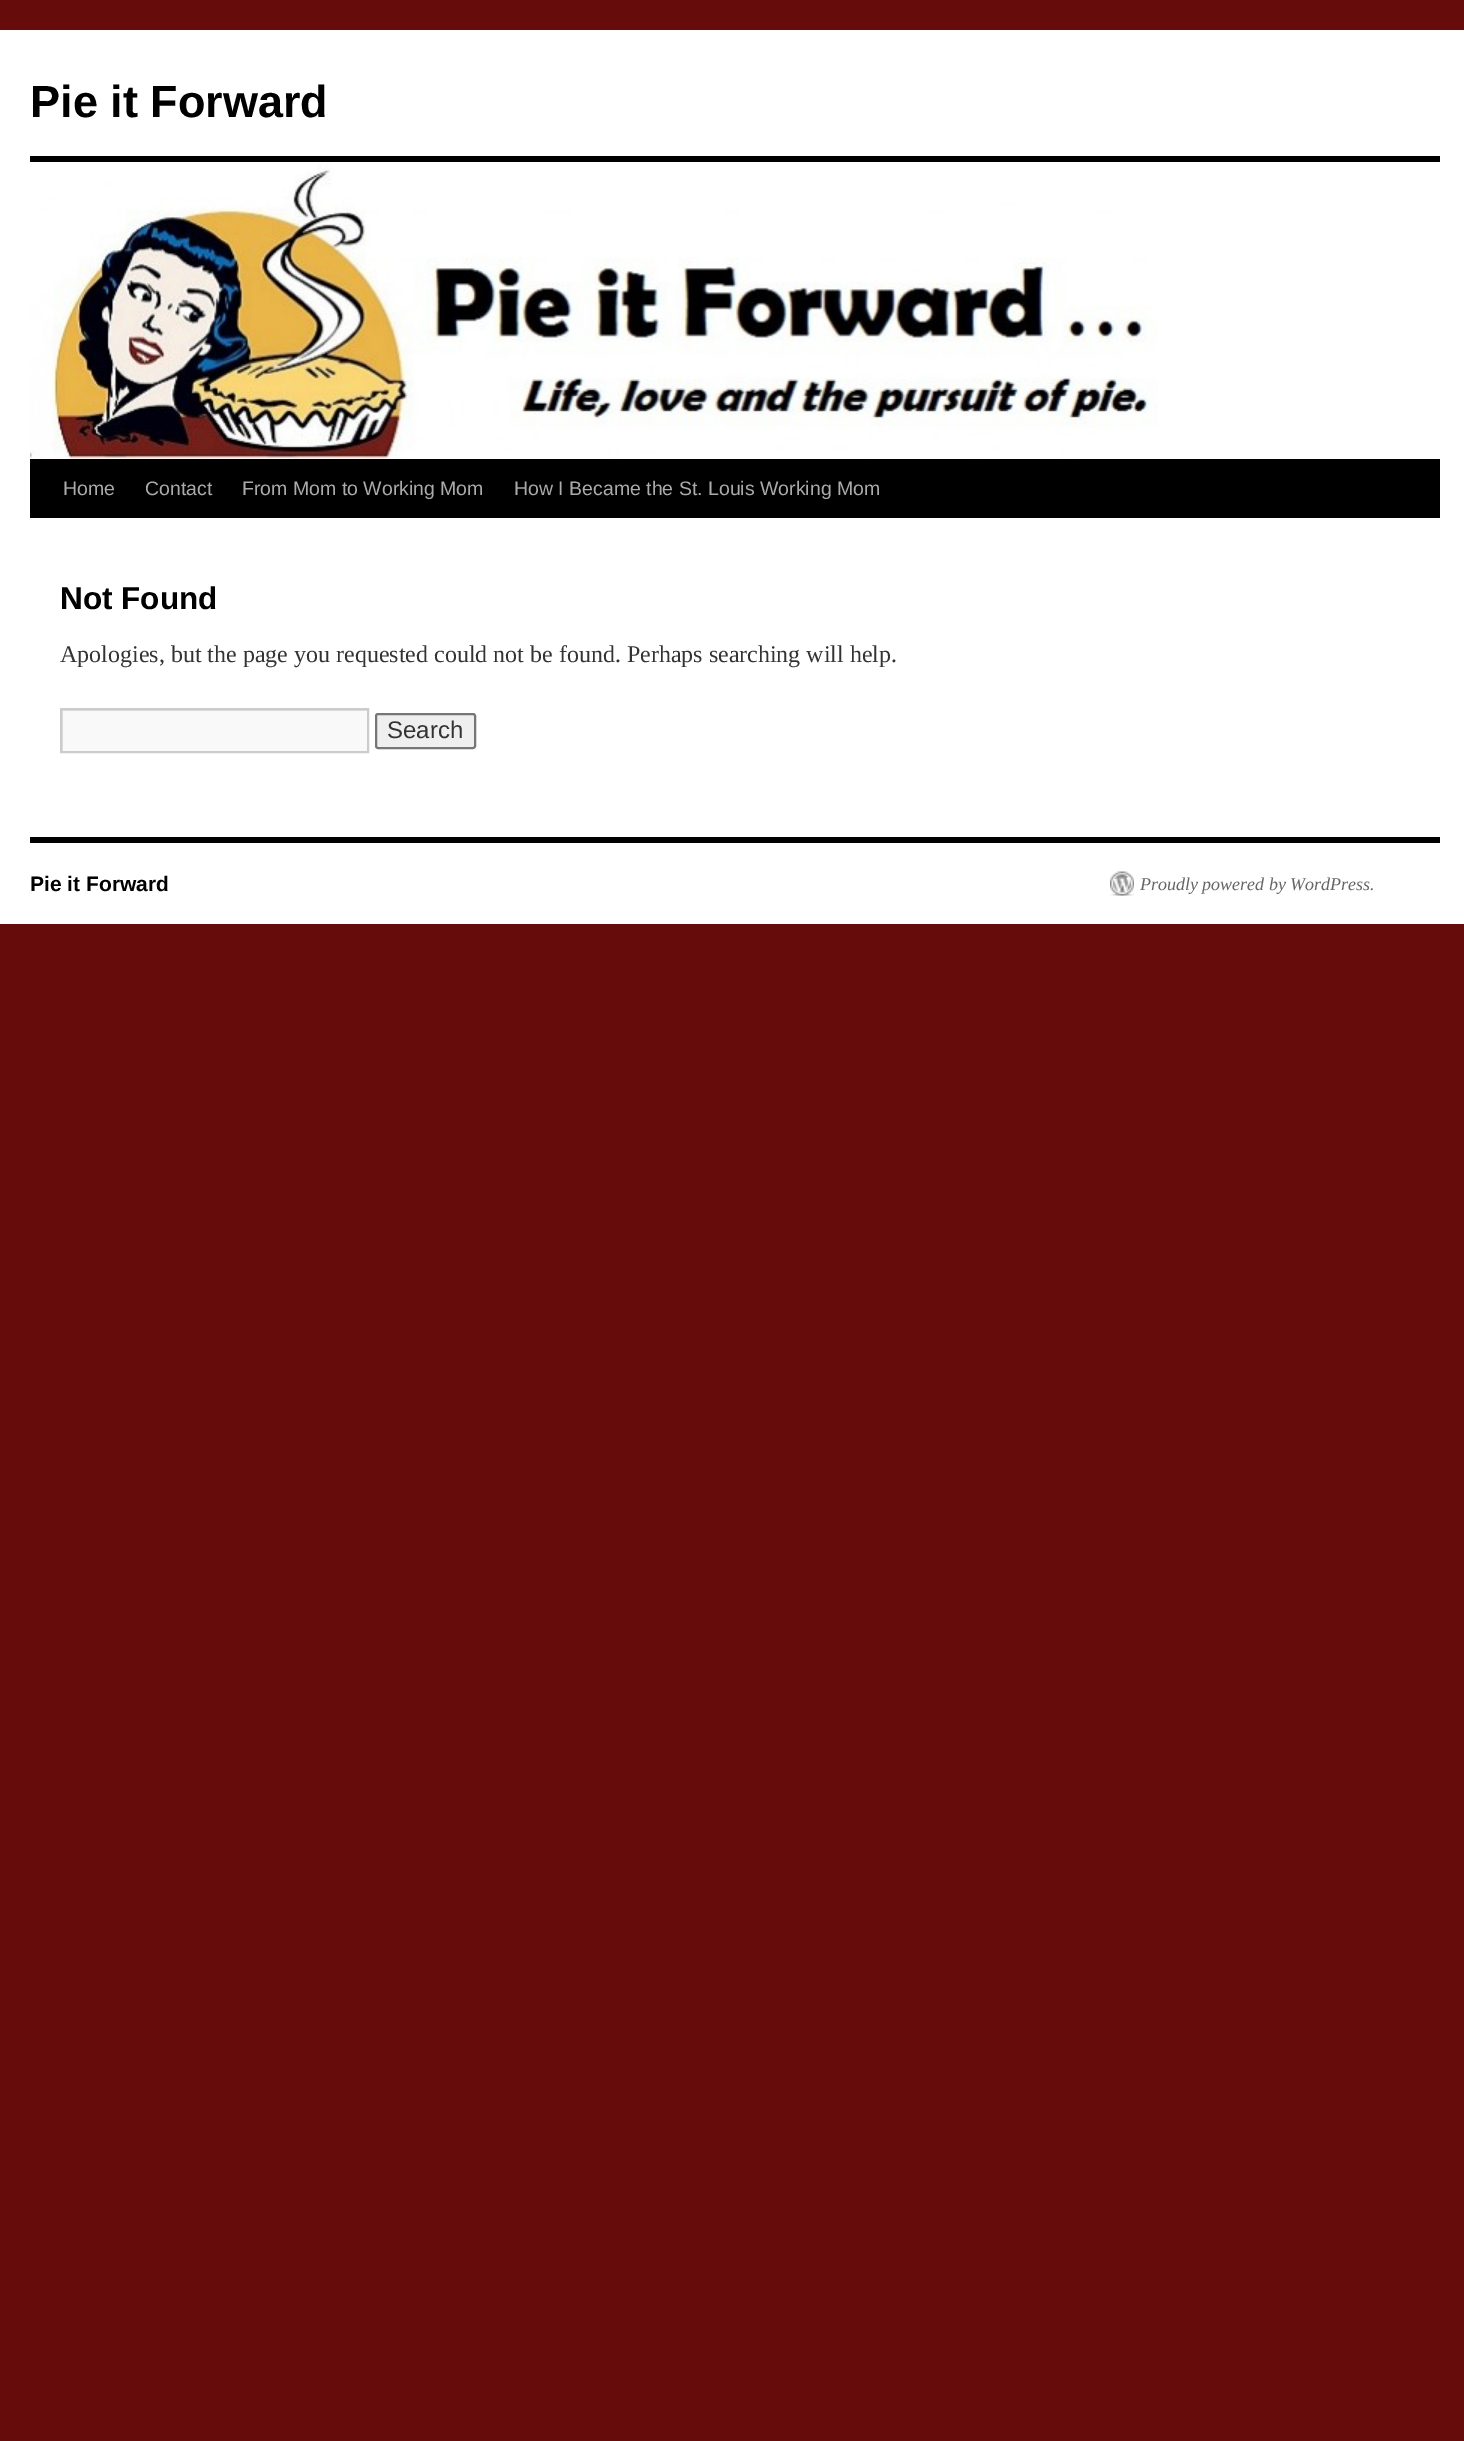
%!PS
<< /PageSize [1464 2441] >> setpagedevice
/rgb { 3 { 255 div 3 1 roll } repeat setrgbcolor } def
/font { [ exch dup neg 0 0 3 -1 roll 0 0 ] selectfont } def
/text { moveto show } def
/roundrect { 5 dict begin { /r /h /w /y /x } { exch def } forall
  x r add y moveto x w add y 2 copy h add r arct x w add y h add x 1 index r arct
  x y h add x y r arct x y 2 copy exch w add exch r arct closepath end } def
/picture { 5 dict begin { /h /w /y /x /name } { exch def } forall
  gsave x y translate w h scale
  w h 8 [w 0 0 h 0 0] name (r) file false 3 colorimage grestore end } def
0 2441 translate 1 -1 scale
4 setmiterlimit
102 13 11 rgb
0 0 1464 2441 rectfill
255 255 255 rgb
0 30 1464 894 rectfill
0 0 0 rgb
30 156 1410 6 rectfill
30 459 1410 59 rectfill
(img_01.rgb) 30 162 1128 297 picture
249 249 249 rgb
63 711 304 40 rectfill
gsave
62 710 306 42 rectclip
224 224 224 rgb
-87 561 moveto 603 0 rlineto 0 339 rlineto -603 0 rlineto closepath 63 711 moveto 306 0 rlineto 0 42 rlineto -306 0 rlineto closepath eofill
grestore
204 204 204 rgb
2 setlinewidth
61 709 307 43 rectstroke
239 239 239 rgb
376 714 99 34 2 roundrect gsave fill grestore
118 118 118 rgb
stroke
0 0 0 rgb
30 837 1410 6 rectfill
(img_02.rgb) 1110 871 24 25 picture
/LiberationSans-Bold 45 font
(Pie it Forward) 30 117 text
/LiberationSans-Regular 19.5 font
170 170 170 rgb
(Home) 63 495 text
(Contact) 145 495 text
(From Mom to Working Mom) 242 495 text
(How I Became the St. Louis Working Mom) 514 495 text
/LiberationSans-Bold 31.5 font
0 0 0 rgb
(Not Found) 60 609 text
/LiberationSerif-Regular 24 font
51 51 51 rgb
(Apologies, but the page you requested could not be found. Perhaps searching will help.) 60 662 text
/LiberationSans-Regular 24 font
(Search) 387 738 text
/LiberationSans-Bold 21 font
0 0 0 rgb
(Pie it Forward) 30 891 text
/LiberationSerif-Italic 18 font
102 102 102 rgb
(Proudly powered by WordPress.) 1140 890 text
showpage
